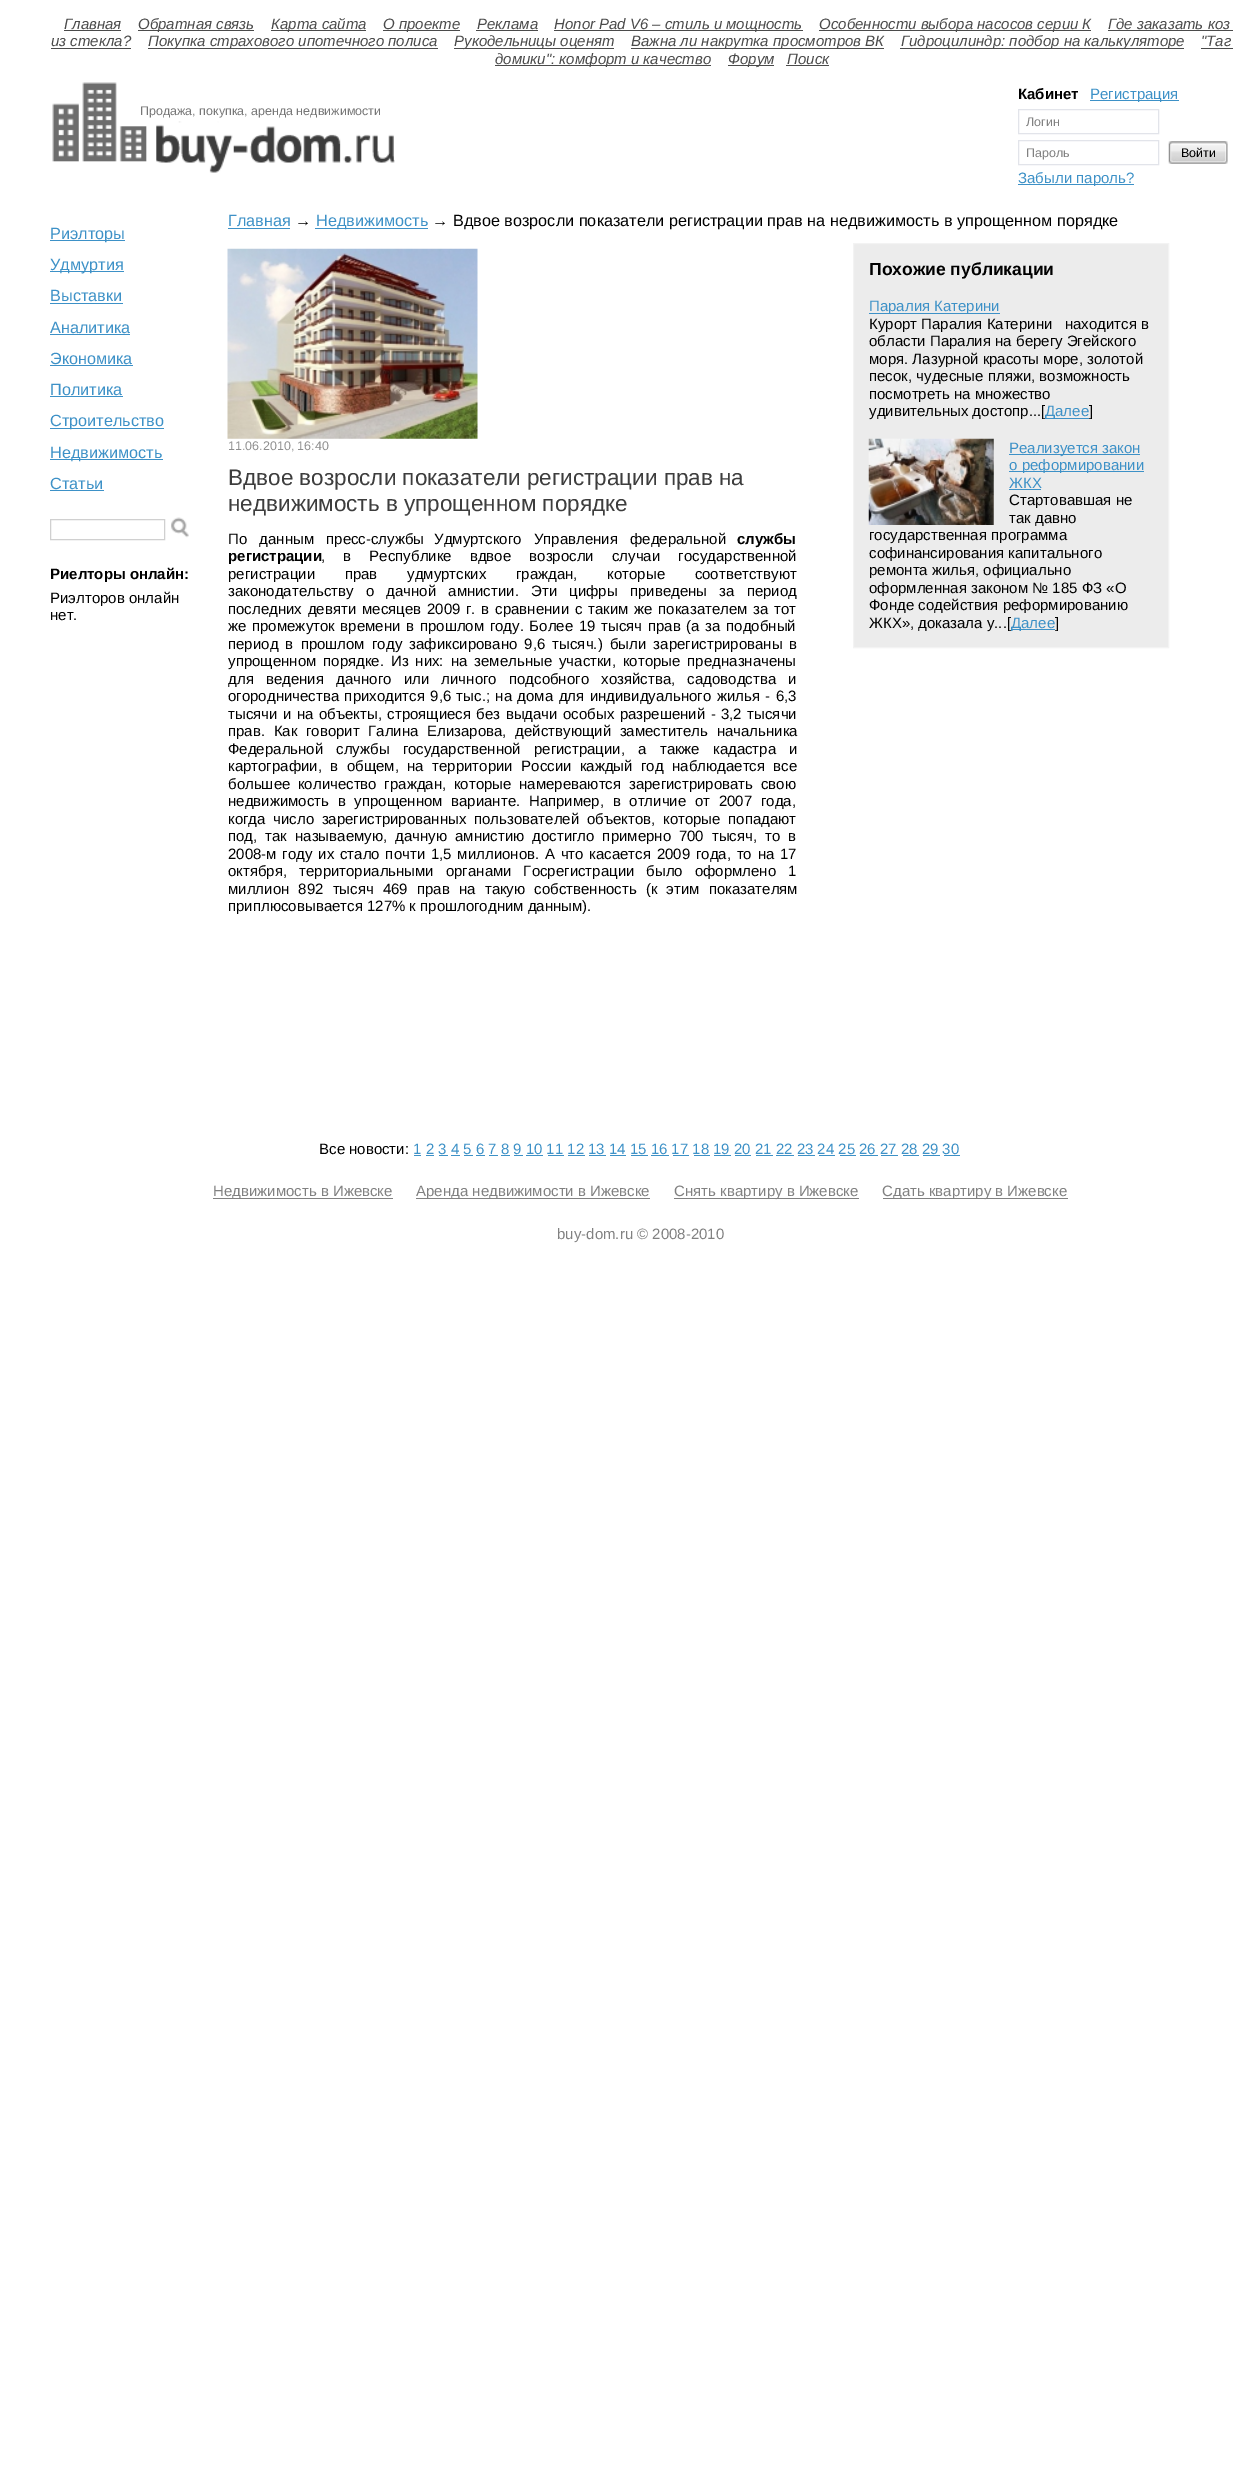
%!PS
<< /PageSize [1233 2482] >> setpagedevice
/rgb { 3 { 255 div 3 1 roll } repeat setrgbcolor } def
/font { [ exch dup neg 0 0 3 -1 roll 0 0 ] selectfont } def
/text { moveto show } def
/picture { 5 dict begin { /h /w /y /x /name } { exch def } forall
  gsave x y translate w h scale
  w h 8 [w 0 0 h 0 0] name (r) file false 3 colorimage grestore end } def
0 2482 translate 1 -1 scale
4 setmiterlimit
255 255 255 rgb
0 0 1233 2482 rectfill
75 75 75 rgb
64 30 57 1 rectfill
138 30 116 1 rectfill
271 30 95 1 rectfill
383 30 77 1 rectfill
476 30 62 1 rectfill
554 30 249 1 rectfill
819 30 272 1 rectfill
1108 30 125 1 rectfill
51 48 80 1 rectfill
148 48 290 1 rectfill
454 48 160 1 rectfill
631 48 253 1 rectfill
900 48 284 1 rectfill
1201 48 32 1 rectfill
495 65 216 1 rectfill
728 65 46 1 rectfill
786 65 43 1 rectfill
(img_01.rgb) 52 82 343 91 picture
61 145 199 rgb
1090 100 89 1 rectfill
226 228 234 rgb
1018.5 109.5 140 24 rectstroke
1018.5 140.5 140 24 rectstroke
(img_02.rgb) 1168 141 60 23 picture
61 145 199 rgb
1018 184 116 1 rectfill
50 240 75 1 rectfill
50 271 74 1 rectfill
50 303 73 1 rectfill
50 334 80 1 rectfill
50 365 83 1 rectfill
50 396 73 1 rectfill
50 428 114 1 rectfill
50 459 113 1 rectfill
50 490 54 1 rectfill
208 208 208 rgb
50.5 519.5 114 20 rectstroke
(img_03.rgb) 171 517 18 21 picture
61 145 199 rgb
228 228 62 1 rectfill
315 228 113 1 rectfill
(img_04.rgb) 227 248 251 191 picture
236 236 236 rgb
853.5 243.5 moveto 315 0 rlineto 0 404 rlineto -315 0 rlineto closepath gsave fill grestore
243 243 243 rgb
stroke
61 145 199 rgb
869 313 131 1 rectfill
(img_05.rgb) 868 438 126 87 picture
1009 454 131 1 rectfill
1009 471 135 1 rectfill
1009 489 32 1 rectfill
1011 629 44 1 rectfill
414 1155 7 1 rectfill
426 1155 8 1 rectfill
439 1155 9 1 rectfill
451 1155 9 1 rectfill
464 1155 9 1 rectfill
476 1155 9 1 rectfill
489 1155 9 1 rectfill
501 1155 9 1 rectfill
514 1155 9 1 rectfill
526 1155 17 1 rectfill
548 1155 16 1 rectfill
568 1155 17 1 rectfill
589 1155 17 1 rectfill
610 1155 16 1 rectfill
631 1155 17 1 rectfill
651 1155 18 1 rectfill
673 1155 16 1 rectfill
694 1155 16 1 rectfill
714 1155 17 1 rectfill
735 1155 16 1 rectfill
756 1155 17 1 rectfill
776 1155 18 1 rectfill
798 1155 17 1 rectfill
819 1155 16 1 rectfill
840 1155 16 1 rectfill
860 1155 18 1 rectfill
881 1155 17 1 rectfill
903 1155 16 1 rectfill
923 1155 17 1 rectfill
944 1155 16 1 rectfill
129 129 129 rgb
213 1198 180 1 rectfill
416 1198 234 1 rectfill
674 1198 185 1 rectfill
883 1198 185 1 rectfill
/LiberationSans-Italic 15 font
75 75 75 rgb
(Главная) 64 29 text
(Обратная связь) 138 29 text
(Карта сайта) 271 29 text
(О проекте) 383 29 text
(Реклама) 477 29 text
(Honor Pad V6 – стиль и мощность) 554 29 text
(Особенности выбора насосов серии К) 819 29 text
(Где заказать коз) 1108 29 text
(из стекла?) 51 46 text
(Покупка страхового ипотечного полиса) 148 46 text
(Рукодельницы оценят) 454 46 text
(Важна ли накрутка просмотров ВК) 631 46 text
(Гидроцилиндр: подбор на калькуляторе) 901 46 text
("Таг) 1201 46 text
(домики": комфорт и качество) 495 64 text
(Форум) 728 64 text
(Поиск) 787 64 text
/LiberationSans-Regular 12.5 font
119 119 119 rgb
(Продажа, покупка, аренда недвижимости) 140 115 text
/LiberationSans-Bold 15 font
0 0 0 rgb
(Кабинет) 1018 99 text
/LiberationSans-Regular 15 font
61 145 199 rgb
(Регистрация) 1090 99 text
/LiberationSans-Regular 12.5 font
129 129 129 rgb
(Логин) 1026 126 text
(Пароль) 1026 157 text
0 0 0 rgb
(Войти) 1181 157 text
/LiberationSans-Regular 15 font
61 145 199 rgb
(Забыли пароль?) 1018 183 text
/LiberationSans-Regular 16.25 font
(Риэлторы) 50 239 text
(Удмуртия) 50 270 text
(Выставки) 50 301 text
(Аналитика) 50 333 text
(Экономика) 50 364 text
(Политика) 50 395 text
(Строительство) 50 426 text
(Недвижимость) 50 458 text
(Статьи) 50 489 text
/LiberationSans-Bold 15 font
0 0 0 rgb
(Риелторы онлайн:) 50 579 text
/LiberationSans-Regular 15 font
(Риэлторов онлайн) 50 603 text
(нет.) 50 620 text
/LiberationSans-Regular 16.25 font
61 145 199 rgb
(Главная) 228 226 text
0 0 0 rgb
(→) 295 226 text
61 145 199 rgb
(Недвижимость) 316 226 text
0 0 0 rgb
(→ Вдвое возросли показатели регистрации прав на недвижимость в упрощенном порядке) 432 226 text
/LiberationSans-Regular 12.5 font
143 143 143 rgb
(11.06.2010, 16:40) 228 450 text
/LiberationSans-Regular 22.5 font
61 61 61 rgb
(Вдвое возросли показатели регистрации прав на) 228 485 text
(недвижимость в упрощенном порядке) 228 511 text
/LiberationSans-Regular 15 font
0 0 0 rgb
228 544 moveto 8 0 32 (По данным пресс-службы) widthshow
434 544 moveto 8 0 32 (Удмуртского Управления) widthshow
(федеральной) 630 544 text
/LiberationSans-Bold 15 font
(службы) 737 544 text
(регистрации) 228 561 text
/LiberationSans-Regular 15 font
321 561 moveto 14 0 32 (, в Республике вдвое возросли случаи государственной) widthshow
228 579 moveto 25.5 0 32 (регистрации прав удмуртских граждан, которые соответствуют) widthshow
228 596 moveto 8 0 32 (законодательству о дачной амнистии. Эти цифры приведены за период) widthshow
228 614 moveto 1.6 0 32 (последних девяти месяцев 2009 г. в сравнении с таким же показателем за тот) widthshow
228 631 moveto 1.5 0 32 (же промежуток времени в прошлом году. Более 19 тысяч прав \(а за подобный) widthshow
228 649 moveto 3 0 32 (период в прошлом году зафиксировано 9,6 тысяч.\) были зарегистрированы в) widthshow
228 666 moveto 2.75 0 32 (упрощенном порядке. Из них: на земельные участки, которые предназначены) widthshow
228 684 moveto 8 0 32 (для ведения дачного или личного подсобного хозяйства, садоводства и) widthshow
228 701 moveto 1.25 0 32 (огородничества приходится 9,6 тыс.; на дома для индивидуального жилья - 6,3) widthshow
228 719 moveto 1.25 0 32 (тысячи и на объекты, строящиеся без выдачи особых разрешений - 3,2 тысячи) widthshow
228 736 moveto 4.5 0 32 (прав. Как говорит Галина Елизарова, действующий заместитель начальника) widthshow
228 754 moveto 9 0 32 (Федеральной службы государственной регистрации, а также кадастра и) widthshow
228 771 moveto 4.25 0 32 (картографии, в общем, на территории России каждый год наблюдается все) widthshow
228 789 moveto 3.5 0 32 (большее количество граждан, которые намереваются зарегистрировать свою) widthshow
228 806 moveto 4.5 0 32 (недвижимость в упрощенном варианте. Например, в отличие от 2007 года,) widthshow
228 824 moveto 3.5 0 32 (когда число зарегистрированных пользователей объектов, которые попадают) widthshow
228 841 moveto 3.75 0 32 (под, так называемую, дачную амнистию достигло примерно 700 тысяч, то в) widthshow
228 859 moveto 1.6 0 32 (2008-м году их стало почти 1,5 миллионов. А что касается 2009 года, то на 17) widthshow
228 876 moveto 7.75 0 32 (октября, территориальными органами Госрегистрации было оформлено 1) widthshow
228 894 moveto 5 0 32 (миллион 892 тысяч 469 прав на такую собственность \(к этим показателям) widthshow
(приплюсовывается 127% к прошлогодним данным\).) 228 911 text
/LiberationSans-Bold 17.5 font
(Похожие публикации) 869 275 text
/LiberationSans-Regular 15 font
61 145 199 rgb
(Паралия Катерини) 869 311 text
0 0 0 rgb
(Курорт Паралия Катерини   находится в) 869 329 text
(области Паралия на берегу Эгейского) 869 346 text
(моря. Лазурной красоты море, золотой) 869 364 text
(песок, чудесные пляжи, возможность) 869 381 text
(посмотреть на множество) 869 399 text
(удивительных достопр...[) 869 416 text
61 145 199 rgb
1045 418 44 1 rectfill
(Далее) 1045 416 text
0 0 0 rgb
(]) 1089 416 text
61 145 199 rgb
(Реализуется закон) 1009 453 text
(о реформировании) 1009 470 text
(ЖКХ) 1009 488 text
0 0 0 rgb
(Стартовавшая не) 1009 505 text
(так давно) 1009 523 text
(государственная программа) 869 540 text
(софинансирования капитального) 869 558 text
(ремонта жилья, официально) 869 575 text
(оформленная законом № 185 ФЗ «О) 869 593 text
(Фонде содействия реформированию) 869 610 text
(ЖКХ», доказала у...[) 869 628 text
61 145 199 rgb
(Далее) 1011 628 text
0 0 0 rgb
(]) 1055 628 text
(Все новости:) 319 1154 text
61 145 199 rgb
(1 2 3 4 5 6 7 8 9 10 11 12 13 14 15 16 17 18 19 20 21 22 23 24 25 26 27 28 29 30) 413 1154 text
129 129 129 rgb
(Недвижимость в Ижевске) 213 1196 text
(Аренда недвижимости в Ижевске) 416 1196 text
(Снять квартиру в Ижевске) 674 1196 text
(Сдать квартиру в Ижевске) 882 1196 text
(buy-dom.ru © 2008-2010) 557 1239 text
showpage
